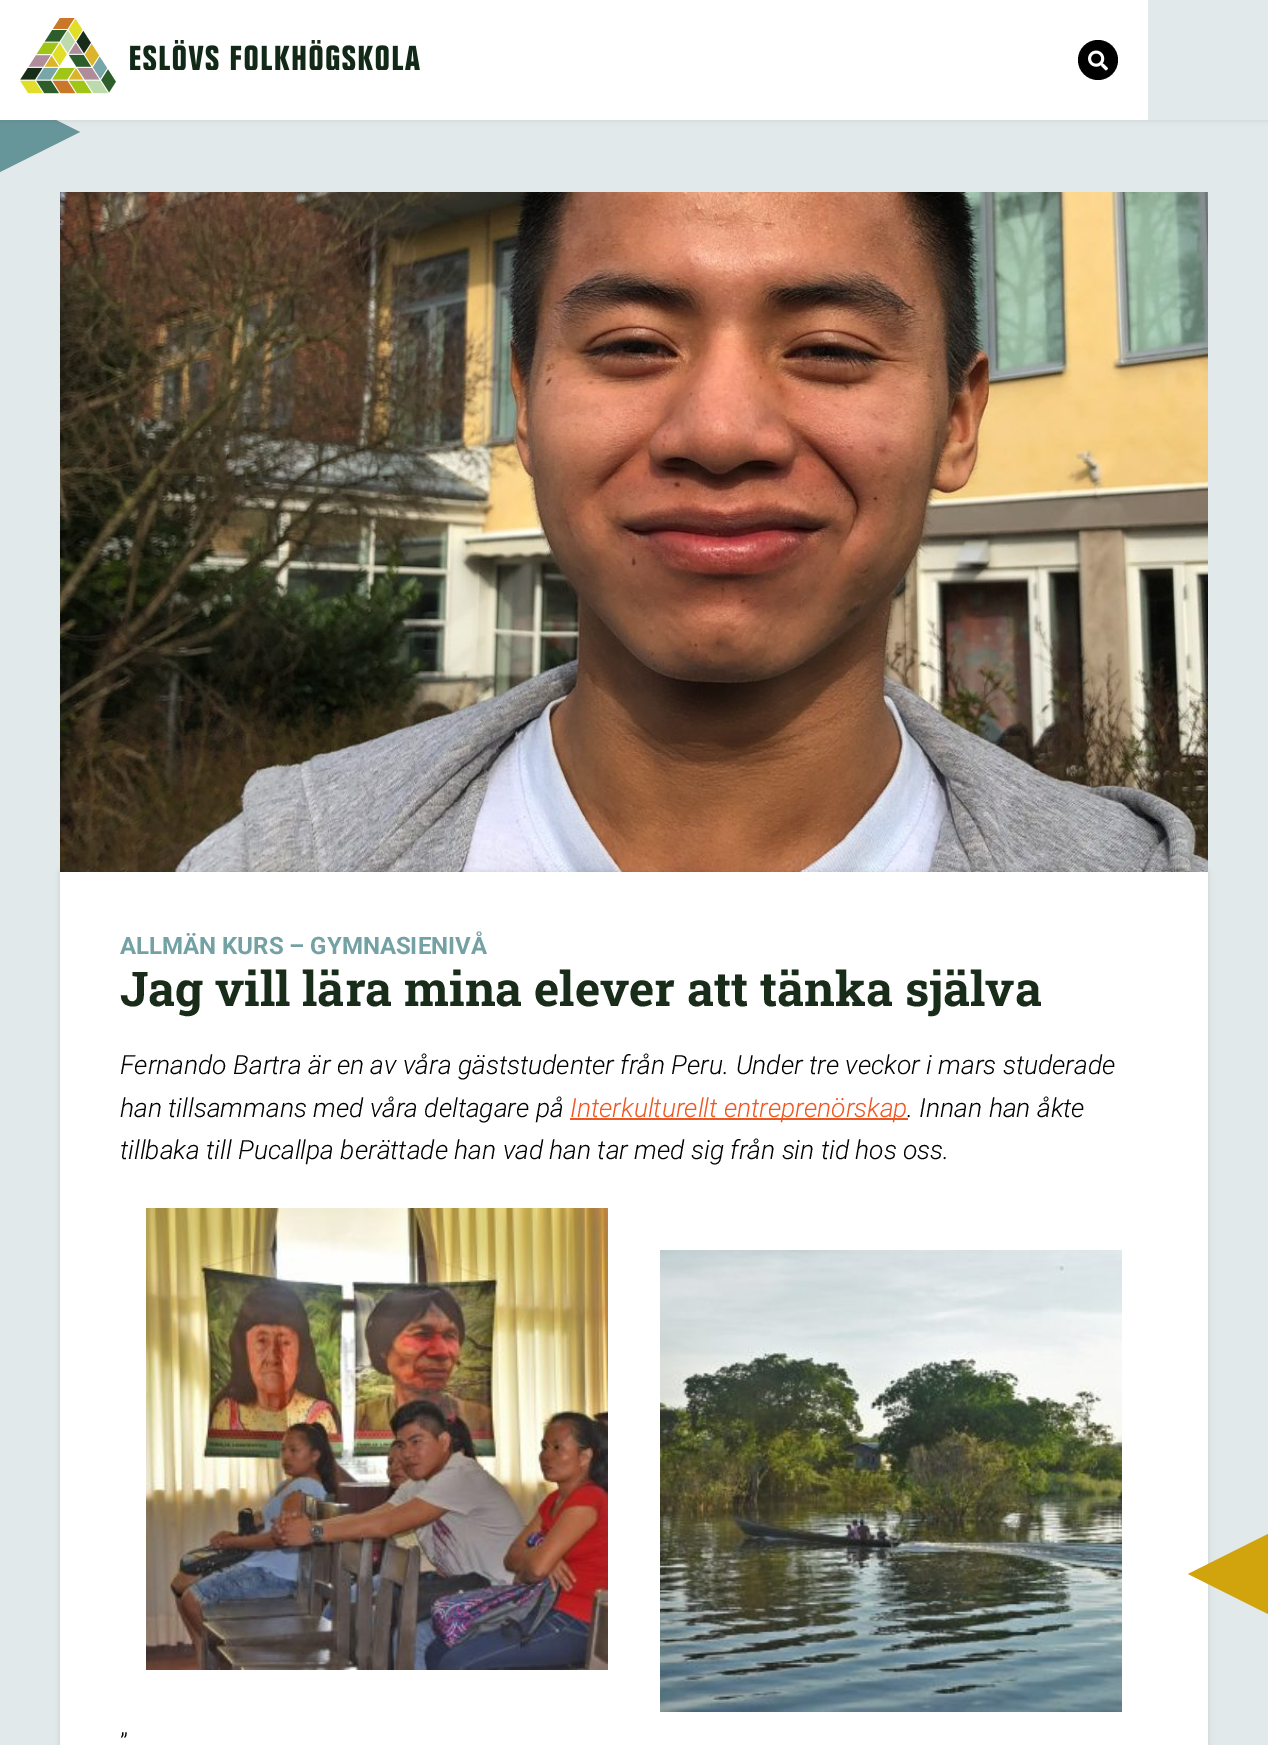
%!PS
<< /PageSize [1268 1745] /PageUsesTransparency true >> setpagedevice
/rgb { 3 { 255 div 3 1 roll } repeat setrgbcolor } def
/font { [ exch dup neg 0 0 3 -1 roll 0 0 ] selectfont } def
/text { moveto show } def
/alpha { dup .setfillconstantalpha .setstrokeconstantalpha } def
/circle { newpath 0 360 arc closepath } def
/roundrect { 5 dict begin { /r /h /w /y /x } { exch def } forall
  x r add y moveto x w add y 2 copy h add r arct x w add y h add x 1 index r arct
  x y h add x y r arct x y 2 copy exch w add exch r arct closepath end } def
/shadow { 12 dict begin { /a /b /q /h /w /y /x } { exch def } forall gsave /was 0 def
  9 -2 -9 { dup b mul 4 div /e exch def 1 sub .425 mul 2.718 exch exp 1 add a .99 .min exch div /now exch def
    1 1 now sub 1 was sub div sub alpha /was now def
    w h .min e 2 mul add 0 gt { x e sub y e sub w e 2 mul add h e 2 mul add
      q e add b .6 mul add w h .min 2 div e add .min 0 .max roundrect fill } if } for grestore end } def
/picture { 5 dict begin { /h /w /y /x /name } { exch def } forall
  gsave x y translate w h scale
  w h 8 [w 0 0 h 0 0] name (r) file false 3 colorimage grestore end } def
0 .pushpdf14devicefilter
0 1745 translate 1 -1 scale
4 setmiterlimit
225 233 234 rgb
0 0 1268 1745 rectfill
103 150 154 rgb
0 92 moveto 0 80 rlineto 80 -40 rlineto closepath fill
0 0 0 rgb
0 0 1268 120 0 3 0.1 shadow
255 255 255 rgb
0 0 1148 120 rectfill
(img_01.rgb) 20 18 96 76 picture
(img_02.rgb) 130 40 290 30 picture
0 0 0 rgb
1098 60 20 circle fill
(img_03.rgb) 1088 50 20 21 picture
225 233 234 rgb
1148 0 120 120 rectfill
(img_04.rgb) 60 192 1148 680 picture
0 0 0 rgb
60 872 1148 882 0 3 0.1 shadow
255 255 255 rgb
60 872 1148 873 rectfill
238 86 34 rgb
570 1118 338 2 rectfill
(img_05.rgb) 146 1208 462 462 picture
(img_06.rgb) 660 1250 462 462 picture
209 163 12 rgb
1188 1574 moveto 80 -40 rlineto 0 80 rlineto closepath fill
/Roboto-Bold 24 font
115 161 164 rgb
(ALLMÄN KURS – GYMNASIENIVÅ) 120 954 text
/RobotoSlab-Bold 48 font
24 44 25 rgb
(Jag vill lära mina elever att tänka själva) 120 1006 text
/Roboto-LightItalic 26.4 font
0 0 0 rgb
(Fernando Bartra är en av våra gäststudenter från Peru. Under tre veckor i mars studerade) 120 1074 text
(han tillsammans med våra deltagare på) 120 1117 text
238 86 34 rgb
(Interkulturellt entreprenörskap) 570 1117 text
0 0 0 rgb
(. Innan han åkte) 907 1117 text
(tillbaka till Pucallpa berättade han vad han tar med sig från sin tid hos oss.) 120 1159 text
/Roboto-Light 26.4 font
(”) 120 1752 text
.poppdf14devicefilter showpage
